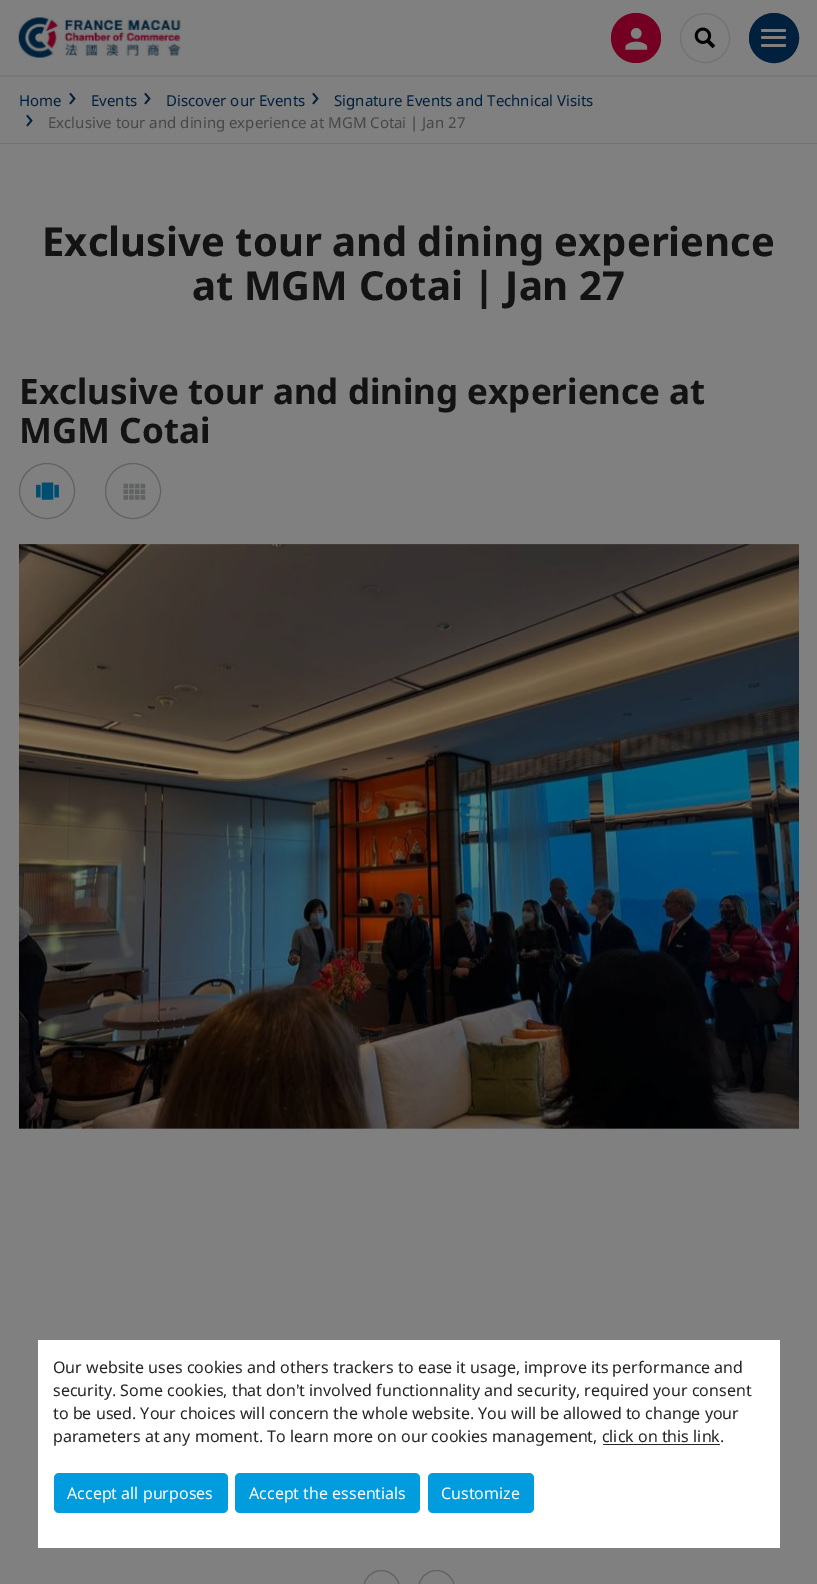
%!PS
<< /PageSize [817 1584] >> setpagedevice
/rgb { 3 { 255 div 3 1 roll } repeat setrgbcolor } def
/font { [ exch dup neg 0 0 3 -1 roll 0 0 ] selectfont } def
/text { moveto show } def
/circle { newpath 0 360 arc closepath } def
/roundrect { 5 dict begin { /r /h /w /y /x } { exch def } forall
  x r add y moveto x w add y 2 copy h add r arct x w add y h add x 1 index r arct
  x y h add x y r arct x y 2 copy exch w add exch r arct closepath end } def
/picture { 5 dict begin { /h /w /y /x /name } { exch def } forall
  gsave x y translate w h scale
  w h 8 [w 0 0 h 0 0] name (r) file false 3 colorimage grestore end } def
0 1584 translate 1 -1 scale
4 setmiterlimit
128 128 128 rgb
0 0 817 1584 rectfill
121 121 121 rgb
0 75 817 2 rectfill
(img_01.rgb) 18 17 163 41 picture
115 0 35 rgb
636 38 25 circle fill
(img_02.rgb) 625 27 23 23 picture
114 114 114 rgb
705 38 24.5 circle stroke
(img_03.rgb) 694 27 22 22 picture
0 32 61 rgb
774 38 24.5 circle gsave fill grestore
stroke
128 128 128 rgb
761 29 25 3 1.5 roundrect fill
761 36 25 3 1.5 roundrect fill
761 44 25 3 1.5 roundrect fill
114 114 114 rgb
0 143 817 1 rectfill
97 98 98 rgb
47 491 27.5 circle stroke
(img_04.rgb) 36 482 23 18 picture
133 491 27.5 circle stroke
(img_05.rgb) 123 483 23 17 picture
(img_06.rgb) 19 544 780 585 picture
363.5 1570.5 36 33 18 roundrect stroke
418.5 1570.5 36 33 18 roundrect stroke
255 255 255 rgb
38 1340 742 208 rectfill
37 37 37 rgb
603 1444 117 1 rectfill
0 156 222 rgb
54 1473 174 40 5 roundrect fill
235 1473 185 40 5 roundrect fill
428 1473 106 40 5 roundrect fill
/NotoSans-Regular 15 font
0 32 61 rgb
(Home) 19 106 text
/NotoSans-Regular 28 font
(›) 68 106 text
/NotoSans-Regular 15 font
(Events) 91 106 text
/NotoSans-Regular 28 font
(›) 143 106 text
/NotoSans-Regular 15 font
(Discover our Events) 166 106 text
/NotoSans-Regular 28 font
(›) 311 106 text
/NotoSans-Regular 15 font
(Signature Events and Technical Visits) 334 106 text
/NotoSans-Regular 28 font
(›) 25 128 text
/NotoSans-Regular 15 font
71 71 71 rgb
(Exclusive tour and dining experience at MGM Cotai | Jan 27) 48 128 text
/NotoSans-Bold 40 font
19 19 19 rgb
(Exclusive tour and dining experience) 42 256 text
(at MGM Cotai | Jan 27) 192 300 text
/NotoSans-Bold 35 font
(Exclusive tour and dining experience at) 19 404 text
(MGM Cotai) 19 443 text
/NotoSans-Regular 16 font
37 37 37 rgb
(Our website uses cookies and others trackers to ease it usage, improve its performance and) 53 1373 text
(security. Some cookies, that don't involved functionnality and security, required your consent) 53 1396 text
(to be used. Your choices will concern the whole website. You will be allowed to change your) 53 1419 text
(parameters at any moment. To learn more on our cookies management, click on this link.) 53 1442 text
255 255 255 rgb
(Accept all purposes) 67 1499 text
(Accept the essentials) 249 1499 text
(Customize) 441 1499 text
showpage
